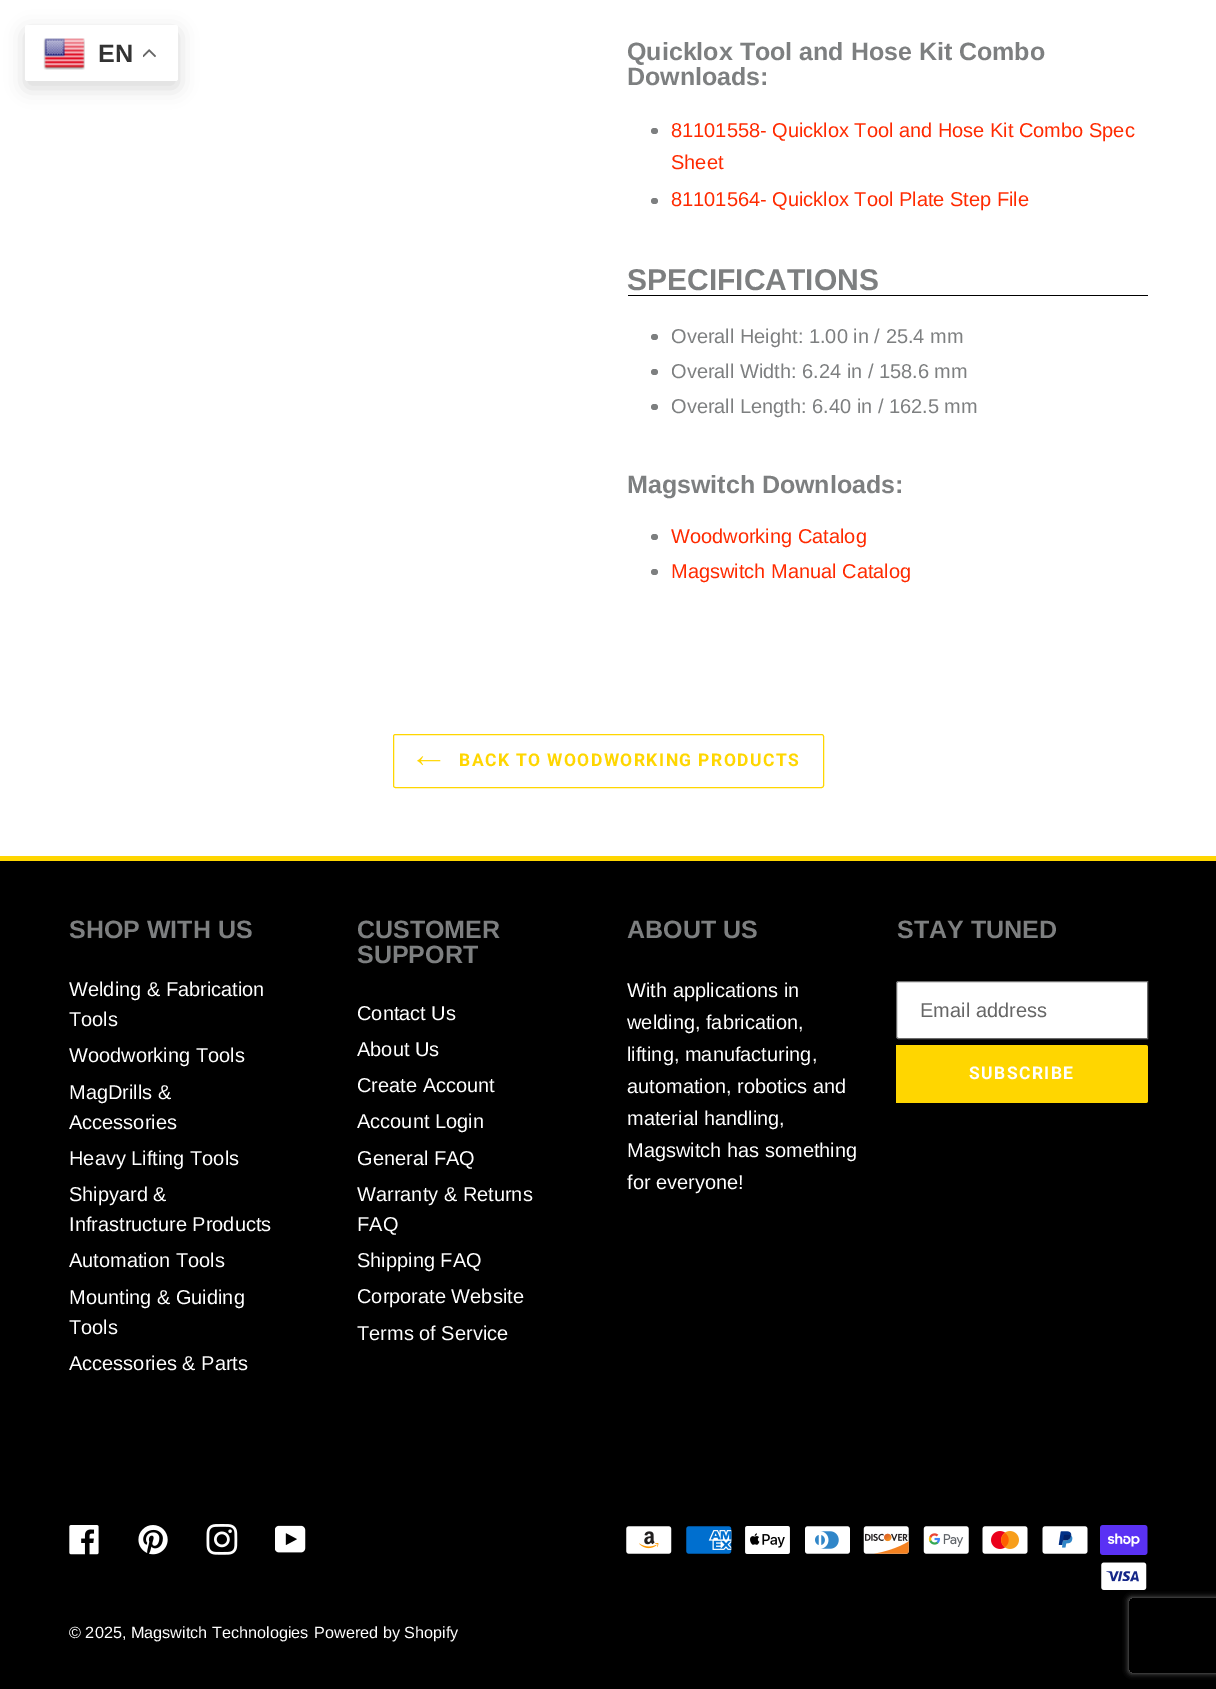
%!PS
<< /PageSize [1216 1689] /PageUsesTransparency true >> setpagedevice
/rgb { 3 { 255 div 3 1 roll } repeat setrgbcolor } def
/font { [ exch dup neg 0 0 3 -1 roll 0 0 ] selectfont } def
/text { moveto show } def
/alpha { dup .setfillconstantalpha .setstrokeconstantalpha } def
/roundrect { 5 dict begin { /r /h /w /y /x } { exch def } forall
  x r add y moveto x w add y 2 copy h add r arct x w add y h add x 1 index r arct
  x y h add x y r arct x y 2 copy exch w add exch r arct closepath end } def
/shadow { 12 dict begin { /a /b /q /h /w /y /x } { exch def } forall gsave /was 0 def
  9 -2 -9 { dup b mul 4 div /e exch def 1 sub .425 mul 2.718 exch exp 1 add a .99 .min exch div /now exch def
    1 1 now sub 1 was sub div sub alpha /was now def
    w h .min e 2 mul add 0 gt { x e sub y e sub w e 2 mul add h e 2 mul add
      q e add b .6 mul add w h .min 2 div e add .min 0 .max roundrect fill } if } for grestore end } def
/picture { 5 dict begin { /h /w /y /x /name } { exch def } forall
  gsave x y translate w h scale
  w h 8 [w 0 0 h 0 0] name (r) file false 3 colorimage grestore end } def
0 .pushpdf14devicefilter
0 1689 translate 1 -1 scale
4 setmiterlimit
255 255 255 rgb
0 0 1216 1689 rectfill
125 127 128 rgb
651 128 7 6 3 roundrect fill
651 198 7 6 3 roundrect fill
0 0 0 rgb
628 295 520 1 rectfill
125 127 128 rgb
651 334 7 6 3 roundrect fill
651 369 7 6 3 roundrect fill
651 404 7 6 3 roundrect fill
651 534 7 6 3 roundrect fill
651 569 7 6 3 roundrect fill
255 214 0 rgb
393.5 734.5 430 53 2 roundrect stroke
(img_01.rgb) 417 756 24 10 picture
0 0 0 rgb
0 861 1216 828 rectfill
255 214 0 rgb
0 856 1216 5 rectfill
255 255 255 rgb
898.5 981.5 moveto 249 0 rlineto 0 57 rlineto -249 0 rlineto -1 0 -2 -1 -2 -2 rcurveto 0 -53 rlineto 0 -1 1 -2 2 -2 rcurveto closepath gsave fill grestore
107 107 107 rgb
stroke
255 214 0 rgb
896 1045 moveto 249.5 0 rlineto 1.5 0 2.5 1 2.5 2.5 rcurveto 0 53 rlineto 0 1.5 -1 2.5 -2.5 2.5 rcurveto -249.5 0 rlineto closepath fill
(img_02.rgb) 69 1525 30 30 picture
(img_03.rgb) 138 1525 30 30 picture
(img_04.rgb) 206 1524 32 31 picture
(img_05.rgb) 275 1525 31 28 picture
(img_06.rgb) 626 1526 46 28 picture
(img_07.rgb) 686 1526 46 28 picture
(img_08.rgb) 745 1526 45 28 picture
(img_09.rgb) 805 1526 45 28 picture
(img_10.rgb) 863 1526 46 28 picture
(img_11.rgb) 923 1526 46 28 picture
(img_12.rgb) 982 1526 46 28 picture
(img_13.rgb) 1042 1526 46 28 picture
(img_14.rgb) 1100 1525 48 30 picture
(img_15.rgb) 1101 1562 46 28 picture
0 0 0 rgb
25 31 153 57 2.5 9.5 0.15 shadow
255 255 255 rgb
25 25 153 56 2.5 roundrect fill
(img_16.rgb) 43 38 42 32 picture
(img_17.rgb) 143 49 13 9 picture
gsave
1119 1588 moveto 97 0 rlineto 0 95 rlineto -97 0 rlineto closepath 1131.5 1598 moveto 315 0 rlineto 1.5 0 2.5 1 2.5 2.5 rcurveto 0 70 rlineto 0 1.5 -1 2.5 -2.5 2.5 rcurveto -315 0 rlineto -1.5 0 -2.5 -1 -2.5 -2.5 rcurveto 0 -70 rlineto 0 -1.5 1 -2.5 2.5 -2.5 rcurveto closepath eoclip newpath
128 128 128 rgb
1129 1598 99 75 2.5 3 1 shadow
grestore
/LiberationSans-Bold 25 font
125 127 128 rgb
(Quicklox Tool and Hose Kit Combo) 627 60 text
(Downloads:) 627 85 text
/LiberationSans-Regular 20 font
255 42 0 rgb
(81101558- Quicklox Tool and Hose Kit Combo Spec) 671 137 text
(Sheet) 671 169 text
(81101564- Quicklox Tool Plate Step File) 671 206 text
/LiberationSans-Bold 30 font
125 127 128 rgb
(SPECIFICATIONS) 627 290 text
/LiberationSans-Regular 20 font
(Overall Height: 1.00 in / 25.4 mm) 671 343 text
(Overall Width: 6.24 in / 158.6 mm) 671 378 text
(Overall Length: 6.40 in / 162.5 mm) 671 413 text
/LiberationSans-Bold 25 font
(Magswitch Downloads:) 627 493 text
/LiberationSans-Regular 20 font
255 42 0 rgb
(Woodworking Catalog) 671 543 text
(Magswitch Manual Catalog) 671 578 text
/Roboto-Bold 17.5 font
255 214 0 rgb
459 766 moveto 1.4 0 (BACK TO WOODWORKING PRODUCTS) ashow
/LiberationSans-Bold 25 font
125 127 128 rgb
(SHOP WITH US) 69 938 text
/LiberationSans-Regular 20 font
255 255 255 rgb
(Welding & Fabrication) 69 996 text
(Tools) 69 1026 text
(Woodworking Tools) 69 1062 text
(MagDrills &) 69 1099 text
(Accessories) 69 1129 text
(Heavy Lifting Tools) 69 1165 text
(Shipyard &) 69 1201 text
(Infrastructure Products) 69 1231 text
(Automation Tools) 69 1267 text
(Mounting & Guiding) 69 1304 text
(Tools) 69 1334 text
(Accessories & Parts) 69 1370 text
/LiberationSans-Bold 25 font
125 127 128 rgb
(CUSTOMER) 357 938 text
(SUPPORT) 357 963 text
/LiberationSans-Regular 20 font
255 255 255 rgb
(Contact Us) 357 1020 text
(About Us) 357 1056 text
(Create Account) 357 1092 text
(Account Login) 357 1128 text
(General FAQ) 357 1165 text
(Warranty & Returns) 357 1201 text
(FAQ) 357 1231 text
(Shipping FAQ) 357 1267 text
(Corporate Website) 357 1303 text
(Terms of Service) 357 1340 text
/LiberationSans-Bold 25 font
125 127 128 rgb
(ABOUT US) 627 938 text
/LiberationSans-Regular 20 font
255 255 255 rgb
(With applications in) 627 997 text
(welding, fabrication,) 627 1029 text
(lifting, manufacturing,) 627 1061 text
(automation, robotics and) 627 1093 text
(material handling,) 627 1125 text
(Magswitch has something) 627 1157 text
(for everyone!) 627 1189 text
/LiberationSans-Bold 25 font
125 127 128 rgb
(STAY TUNED) 897 938 text
/LiberationSans-Regular 20 font
102 102 102 rgb
(Email address) 920 1017 text
/Roboto-Bold 17.5 font
255 255 255 rgb
969 1079 moveto 1.4 0 (SUBSCRIBE) ashow
/LiberationSans-Regular 16.25 font
(© 2025, Magswitch Technologies) 69 1638 text
(Powered by Shopify) 314 1638 text
/LiberationSans-Bold 25 font
51 51 51 rgb
(EN) 98 62 text
.poppdf14devicefilter showpage
